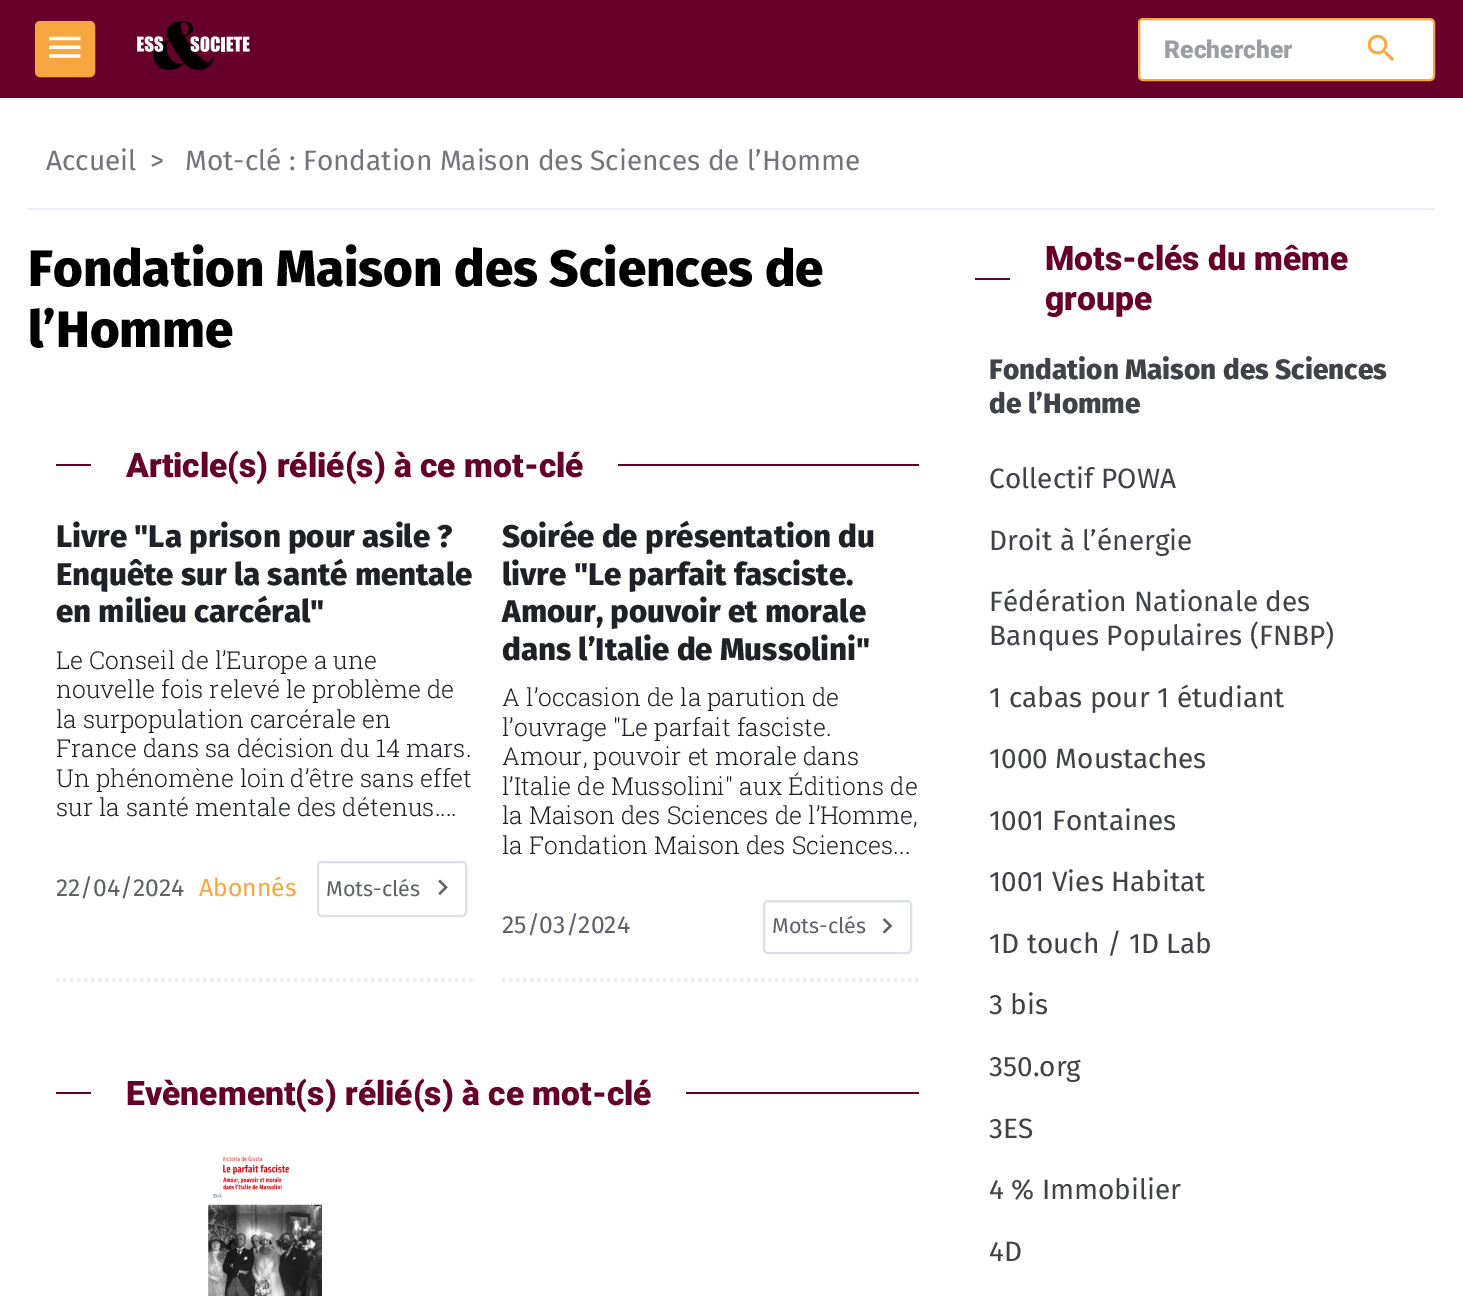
%!PS
<< /PageSize [1463 1296] >> setpagedevice
/rgb { 3 { 255 div 3 1 roll } repeat setrgbcolor } def
/font { [ exch dup neg 0 0 3 -1 roll 0 0 ] selectfont } def
/text { moveto show } def
/roundrect { 5 dict begin { /r /h /w /y /x } { exch def } forall
  x r add y moveto x w add y 2 copy h add r arct x w add y h add x 1 index r arct
  x y h add x y r arct x y 2 copy exch w add exch r arct closepath end } def
/picture { 5 dict begin { /h /w /y /x /name } { exch def } forall
  gsave x y translate w h scale
  w h 8 [w 0 0 h 0 0] name (r) file false 3 colorimage grestore end } def
0 1296 translate 1 -1 scale
4 setmiterlimit
255 255 255 rgb
0 0 1463 1296 rectfill
102 0 43 rgb
0 0 1463 98 rectfill
248 166 64 rgb
36 22 58 54 4 roundrect gsave fill grestore
2 setlinewidth
stroke
(img_01.rgb) 49 36 32 22 picture
(img_02.rgb) 137 21 113 49 picture
255 255 255 rgb
1139 19 295 61 4 roundrect gsave fill grestore
248 166 64 rgb
stroke
(img_03.rgb) 1367 34 28 28 picture
235 238 245 rgb
28 208 1407 2 rectfill
102 0 43 rgb
56 464 35 2 rectfill
618 464 301 2 rectfill
238 238 238 rgb
3.5 setlinewidth
[3.5 3.5] 0 setdash
56 980 moveto 418 0 rlineto stroke
221 224 231 rgb
2 setlinewidth
[] 0 setdash
318 862 148 54 4 roundrect stroke
(img_04.rgb) 438 879 10 16 picture
238 238 238 rgb
3.5 setlinewidth
[3.5 3.5] 0 setdash
502 980 moveto 417 0 rlineto stroke
221 224 231 rgb
2 setlinewidth
[] 0 setdash
764 901 147 52 4 roundrect stroke
(img_05.rgb) 882 918 11 16 picture
102 0 43 rgb
56 1092 35 2 rectfill
686 1092 233 2 rectfill
(img_06.rgb) 208 1156 114 140 picture
975 278 35 2 rectfill
/Roboto-Black 24.7 font
156 158 164 rgb
(Rechercher) 1164 58 text
/FiraSans-Regular 28 font
115 117 123 rgb
(Accueil) 46 170 text
(>) 150 170 text
(Mot-clé : Fondation Maison des Sciences de l’Homme) 185 170 text
/FiraSans-ExtraBold 51 font
0 0 0 rgb
(Fondation Maison des Sciences de) 28 286 text
(l’Homme) 28 347 text
/Roboto-Black 33.6 font
102 0 43 rgb
(Article\(s\) rélié\(s\) à ce mot-clé) 126 477 text
/FiraSans-ExtraBold 31.25 font
31 33 38 rgb
(Livre "La prison pour asile ?) 56 547 text
(Enquête sur la santé mentale) 56 585 text
(en milieu carcéral") 56 622 text
/RobotoSlab-Light 24.7 font
(Le Conseil de l’Europe a une) 56 669 text
(nouvelle fois relevé le problème de) 56 698 text
(la surpopulation carcérale en) 56 728 text
(France dans sa décision du 14 mars.) 56 757 text
(Un phénomène loin d’être sans effet) 56 787 text
(sur la santé mentale des détenus....) 56 816 text
/FiraSans-Regular 24.7 font
95 97 103 rgb
(22/04/2024) 56 896 text
248 166 64 rgb
(Abonnés) 199 896 text
/FiraSans-Regular 21.5 font
95 97 103 rgb
(Mots-clés) 326 896 text
/FiraSans-ExtraBold 31.25 font
31 33 38 rgb
(Soirée de présentation du) 502 547 text
(livre "Le parfait fasciste.) 502 585 text
(Amour, pouvoir et morale) 502 622 text
(dans l’Italie de Mussolini") 502 660 text
/RobotoSlab-Light 24.7 font
(A l’occasion de la parution de) 502 706 text
(l’ouvrage "Le parfait fasciste.) 502 736 text
(Amour, pouvoir et morale dans) 502 765 text
(l’Italie de Mussolini" aux Éditions de) 502 795 text
(la Maison des Sciences de l’Homme,) 502 824 text
(la Fondation Maison des Sciences...) 502 854 text
/FiraSans-Regular 24.7 font
95 97 103 rgb
(25/03/2024) 502 933 text
/FiraSans-Regular 21.5 font
(Mots-clés) 772 933 text
/Roboto-Black 33.6 font
102 0 43 rgb
(Evènement\(s\) rélié\(s\) à ce mot-clé) 126 1105 text
(Mots-clés du même) 1045 270 text
(groupe) 1045 310 text
/FiraSans-ExtraBold 28 font
64 66 72 rgb
(Fondation Maison des Sciences) 989 379 text
(de l’Homme) 989 413 text
/FiraSans-Regular 28 font
(Collectif POWA) 989 488 text
(Droit à l’énergie) 989 550 text
(Fédération Nationale des) 989 611 text
(Banques Populaires \(FNBP\)) 989 645 text
(1 cabas pour 1 étudiant) 989 707 text
(1000 Moustaches) 989 768 text
(1001 Fontaines) 989 830 text
(1001 Vies Habitat) 989 891 text
(1D touch / 1D Lab) 989 953 text
(3 bis) 989 1014 text
(350.org) 989 1076 text
(3ES) 989 1138 text
(4 % Immobilier) 989 1199 text
(4D) 989 1261 text
showpage
